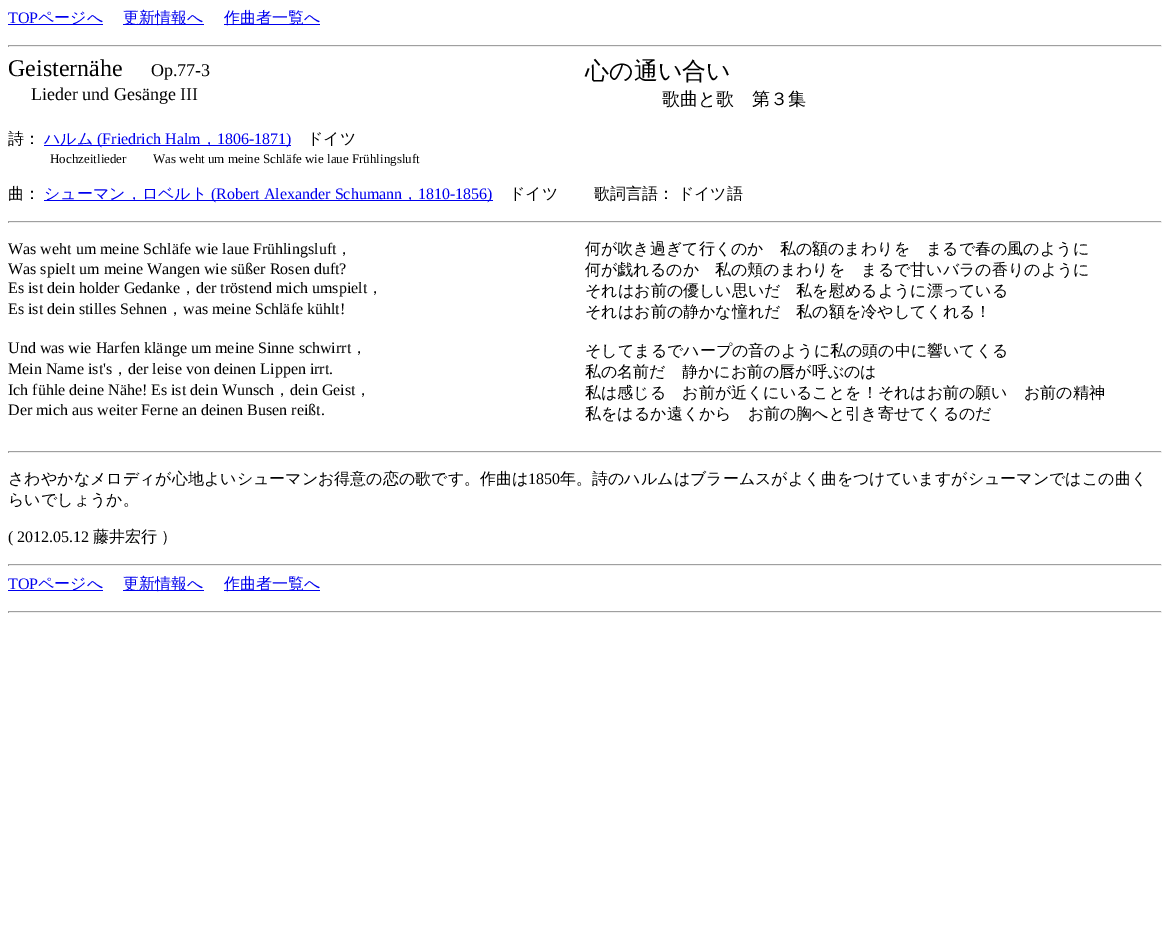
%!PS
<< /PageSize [1170 936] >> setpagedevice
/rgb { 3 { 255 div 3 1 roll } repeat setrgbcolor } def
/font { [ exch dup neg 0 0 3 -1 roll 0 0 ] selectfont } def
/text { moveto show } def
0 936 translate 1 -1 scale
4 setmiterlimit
255 255 255 rgb
0 0 1170 936 rectfill
0 0 238 rgb
8 24 95 1 rectfill
123 24 81 1 rectfill
224 24 96 1 rectfill
159 159 159 rgb
8 45 1154 1 rectfill
238 238 238 rgb
1161 45 1 2 rectfill
8 46 1154 1 rectfill
159 159 159 rgb
8 45 1 2 rectfill
0 0 238 rgb
44 145 247 1 rectfill
44 200 449 1 rectfill
159 159 159 rgb
8 221 1154 1 rectfill
238 238 238 rgb
1161 221 1 2 rectfill
8 222 1154 1 rectfill
159 159 159 rgb
8 221 1 2 rectfill
8 451 1154 1 rectfill
238 238 238 rgb
1161 451 1 2 rectfill
8 452 1154 1 rectfill
159 159 159 rgb
8 451 1 2 rectfill
8 564 1154 1 rectfill
238 238 238 rgb
1161 564 1 2 rectfill
8 565 1154 1 rectfill
159 159 159 rgb
8 564 1 2 rectfill
0 0 238 rgb
8 590 95 1 rectfill
123 590 81 1 rectfill
224 590 96 1 rectfill
159 159 159 rgb
8 611 1154 1 rectfill
238 238 238 rgb
1161 611 1 2 rectfill
8 612 1154 1 rectfill
159 159 159 rgb
8 611 1 2 rectfill
/LiberationSerif-Regular 16 font
0 0 238 rgb
(TOP) 8 23 text
/WenQuanYiZenHei-Medium 16 font
(ページへ) 38 23 text
(更新情報へ) 123 23 text
(作曲者一覧へ) 224 23 text
/LiberationSerif-Regular 24 font
0 0 0 rgb
(Geisternähe) 8 76 text
/LiberationSerif-Regular 18 font
(Op.77-3) 151 76 text
(Lieder und Gesänge III) 31 100 text
/WenQuanYiZenHei-Medium 24 font
(心の通い合い) 585 79 text
/WenQuanYiZenHei-Medium 18 font
(歌曲と歌　第３集) 662 105 text
/WenQuanYiZenHei-Medium 16 font
(詩：) 8 144 text
0 0 238 rgb
(ハルム) 44 144 text
/LiberationSerif-Regular 16 font
(\(Friedrich Halm) 97 144 text
/WenQuanYiZenHei-Medium 16 font
(，) 201 144 text
/LiberationSerif-Regular 16 font
(1806-1871\)) 217 144 text
/WenQuanYiZenHei-Medium 16 font
0 0 0 rgb
(ドイツ) 307 144 text
/LiberationSerif-Regular 13 font
(Hochzeitlieder) 50 163 text
(Was weht um meine Schläfe wie laue Frühlingsluft) 153 163 text
/WenQuanYiZenHei-Medium 16 font
(曲：) 8 199 text
0 0 238 rgb
(シューマン，ロベルト) 44 199 text
/LiberationSerif-Regular 16 font
(\(Robert Alexander Schumann) 211 199 text
/WenQuanYiZenHei-Medium 16 font
(，) 402 199 text
/LiberationSerif-Regular 16 font
(1810-1856\)) 418 199 text
/WenQuanYiZenHei-Medium 16 font
0 0 0 rgb
509 199 moveto -1 0 32 (ドイツ 　　歌詞言語： ドイツ語) widthshow
/LiberationSerif-Regular 16 font
(Was weht um meine Schläfe wie laue Frühlingsluft) 8 254 text
/WenQuanYiZenHei-Medium 16 font
(，) 336 254 text
/LiberationSerif-Regular 16 font
(Was spielt um meine Wangen wie süßer Rosen duft?) 8 274 text
(Es ist dein holder Gedanke) 8 293 text
/WenQuanYiZenHei-Medium 16 font
(，) 180 293 text
/LiberationSerif-Regular 16 font
(der tröstend mich umspielt) 196 293 text
/WenQuanYiZenHei-Medium 16 font
(，) 367 293 text
/LiberationSerif-Regular 16 font
(Es ist dein stilles Sehnen) 8 314 text
/WenQuanYiZenHei-Medium 16 font
(，) 167 314 text
/LiberationSerif-Regular 16 font
(was meine Schläfe kühlt!) 183 314 text
(Und was wie Harfen klänge um meine Sinne schwirrt) 8 353 text
/WenQuanYiZenHei-Medium 16 font
(，) 351 353 text
/LiberationSerif-Regular 16 font
(Mein Name ist's) 8 374 text
/WenQuanYiZenHei-Medium 16 font
(，) 112 374 text
/LiberationSerif-Regular 16 font
(der leise von deinen Lippen irrt.) 128 374 text
(Ich fühle deine Nähe! Es ist dein Wunsch) 8 395 text
/WenQuanYiZenHei-Medium 16 font
(，) 274 395 text
/LiberationSerif-Regular 16 font
(dein Geist) 290 395 text
/WenQuanYiZenHei-Medium 16 font
(，) 355 395 text
/LiberationSerif-Regular 16 font
(Der mich aus weiter Ferne an deinen Busen reißt.) 8 415 text
/WenQuanYiZenHei-Medium 16 font
(何が吹き過ぎて行くのか　私の額のまわりを　まるで春の風のように) 585 254 text
(何が戯れるのか　私の頬のまわりを　まるで甘いバラの香りのように) 585 275 text
(それはお前の優しい思いだ　私を慰めるように漂っている) 585 296 text
(それはお前の静かな憧れだ　私の額を冷やしてくれる！) 585 317 text
(そしてまるでハープの音のように私の頭の中に響いてくる) 585 356 text
(私の名前だ　静かにお前の唇が呼ぶのは) 585 377 text
(私は感じる　お前が近くにいることを！それはお前の願い　お前の精神) 585 398 text
(私をはるか遠くから　お前の胸へと引き寄せてくるのだ) 585 419 text
(さわやかなメロディが心地よいシューマンお得意の恋の歌です。作曲は) 8 484 text
/LiberationSerif-Regular 16 font
(1850) 528 484 text
/WenQuanYiZenHei-Medium 16 font
(年。詩のハルムはブラームスがよく曲をつけていますがシューマンではこの曲く) 560 484 text
(らいでしょうか。) 8 505 text
/LiberationSerif-Regular 16 font
(\( 2012.05.12) 8 542 text
/WenQuanYiZenHei-Medium 16 font
93 542 moveto -1 0 32 (藤井宏行 ）) widthshow
/LiberationSerif-Regular 16 font
0 0 238 rgb
(TOP) 8 589 text
/WenQuanYiZenHei-Medium 16 font
(ページへ) 38 589 text
(更新情報へ) 123 589 text
(作曲者一覧へ) 224 589 text
showpage
